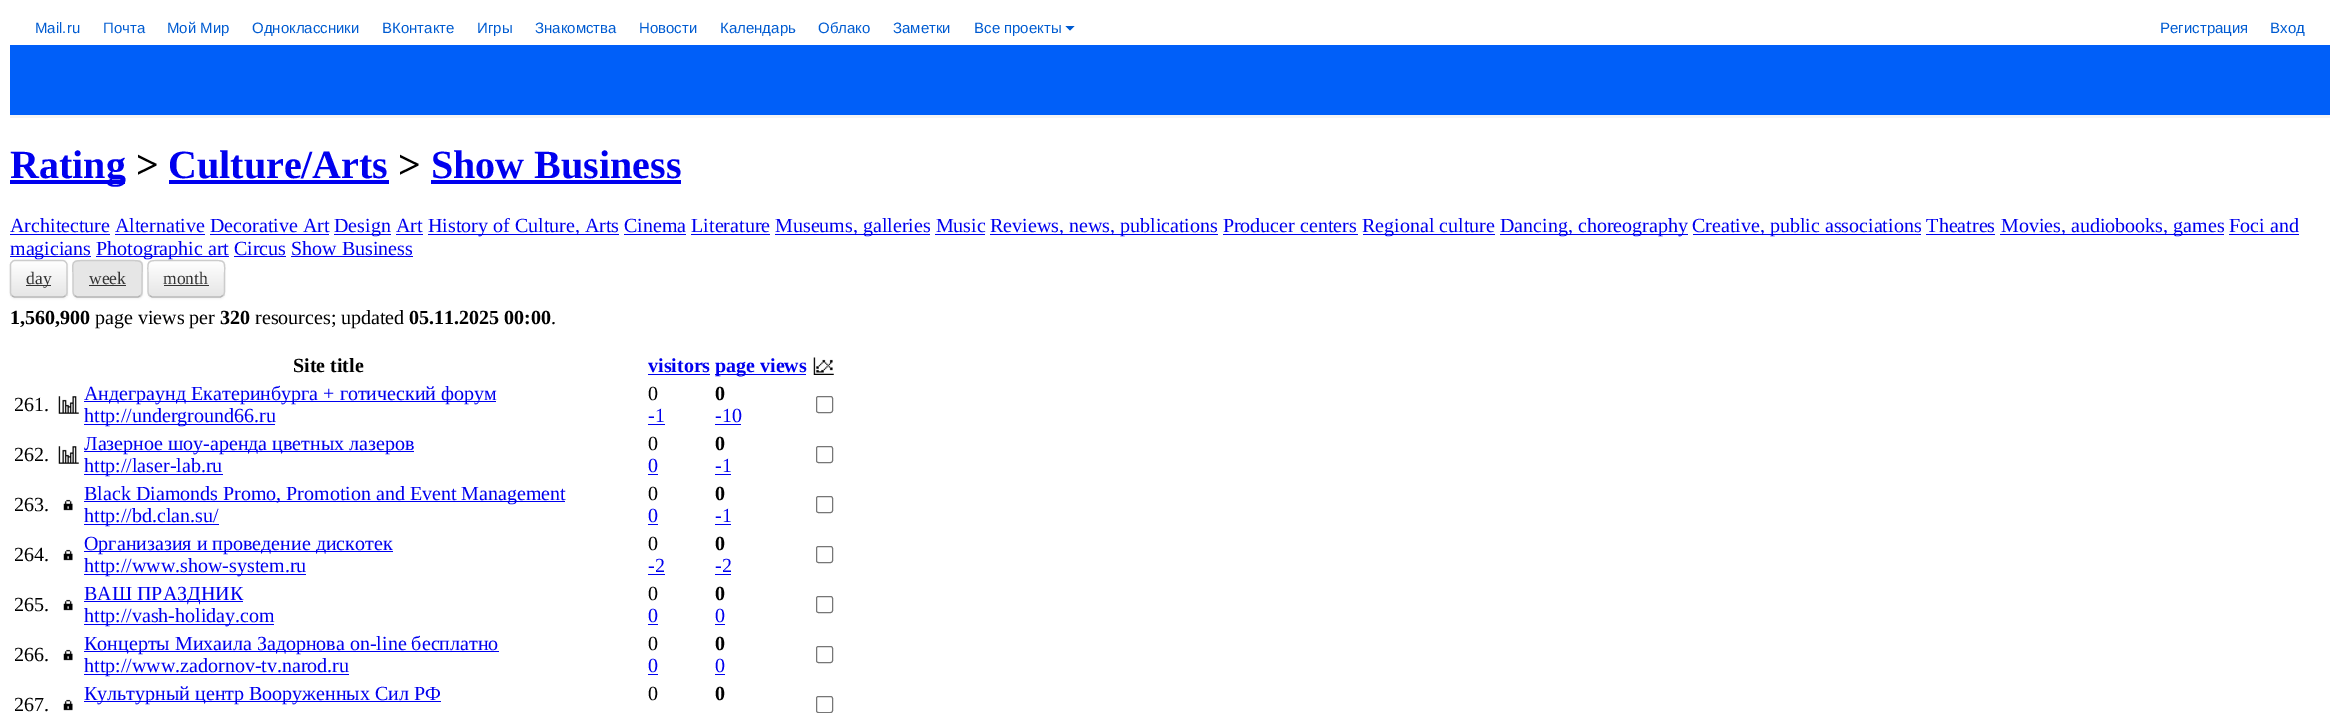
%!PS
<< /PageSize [2340 713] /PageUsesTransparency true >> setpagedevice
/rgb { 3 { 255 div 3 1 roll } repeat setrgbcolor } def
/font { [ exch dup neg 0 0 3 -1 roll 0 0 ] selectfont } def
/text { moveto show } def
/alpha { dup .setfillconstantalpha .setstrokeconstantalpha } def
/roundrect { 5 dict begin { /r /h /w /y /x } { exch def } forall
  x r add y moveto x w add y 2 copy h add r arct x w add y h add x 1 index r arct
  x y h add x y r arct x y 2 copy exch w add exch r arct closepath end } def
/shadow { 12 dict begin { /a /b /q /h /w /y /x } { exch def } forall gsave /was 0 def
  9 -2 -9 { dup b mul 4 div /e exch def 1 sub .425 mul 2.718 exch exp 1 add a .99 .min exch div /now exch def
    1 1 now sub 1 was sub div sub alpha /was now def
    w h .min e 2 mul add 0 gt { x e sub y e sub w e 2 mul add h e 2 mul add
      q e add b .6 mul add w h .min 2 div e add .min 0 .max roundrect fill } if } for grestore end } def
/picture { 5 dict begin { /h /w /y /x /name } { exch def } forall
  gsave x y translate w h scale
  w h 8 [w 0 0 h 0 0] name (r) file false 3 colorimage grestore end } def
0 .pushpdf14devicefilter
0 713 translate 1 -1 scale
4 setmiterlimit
255 255 255 rgb
0 0 2340 713 rectfill
0 91 209 rgb
1065 26 moveto 10 0 rlineto -5 5 rlineto closepath fill
255 255 255 rgb
1075 26 moveto 0 10 rlineto -5 -5 rlineto closepath 1065 36 moveto 0 -10 rlineto 5 5 rlineto closepath fill
245 245 245 rgb
10 115 2320 3 rectfill
0 95 249 rgb
10 45 2320 70 rectfill
0 0 238 rgb
10 180 115 4 rectfill
169 180 220 4 rectfill
431 180 250 4 rectfill
10 234 100 1 rectfill
334 234 57 1 rectfill
428 234 191 1 rectfill
775 234 155 1 rectfill
990 234 228 1 rectfill
1363 234 132 1 rectfill
1500 234 188 1 rectfill
1693 234 228 1 rectfill
2000 234 224 1 rectfill
115 234 90 1 rectfill
210 234 119 1 rectfill
396 234 27 1 rectfill
624 234 62 1 rectfill
691 234 79 1 rectfill
935 234 50 1 rectfill
1223 234 135 1 rectfill
1926 234 69 1 rectfill
2229 234 70 1 rectfill
10 256 81 1 rectfill
96 256 133 1 rectfill
234 256 52 1 rectfill
291 256 122 1 rectfill
0 0 0 rgb
10 261 58 38 5 1 0.05 shadow
245 245 245 rgb
10 260 58 38 5 roundrect fill
gsave
10 260 58 38 5 roundrect clip newpath
gsave 10 261 moveto 58 0 rlineto 0 35 rlineto -58 0 rlineto closepath clip newpath
<< /ShadingType 2 /ColorSpace /DeviceRGB /Coords [39 261 39 296] /Extend [true true] /Function << /FunctionType 2 /Domain [0 1] /C0 [1 1 1] /C1 [0.902 0.902 0.902] /N 1 >> >> shfill grestore
grestore
255 255 255 rgb
15 262 moveto 47 0 rlineto 3 0 4 2 4 4 rcurveto 0 -7 -7 -5 -12 -5 rcurveto -31 0 rlineto -5 0 -12 -2 -12 5 rcurveto 0 -2 2 -4 4 -4 rcurveto closepath fill
179 179 179 rgb
1.2 setlinewidth
65.5 295.5 moveto -0.5 1 -2 1.5 -3 1.5 rcurveto -47.5 0 rlineto -1 0 -2.5 -0.5 -3 -1.5 rcurveto stroke
0 0 0 rgb
73 261 70 38 5 1 0.05 shadow
230 230 230 rgb
73 260 70 38 5 roundrect fill
179 179 179 rgb
140.5 295.5 moveto -2.5 1.5 rlineto -61 0 rlineto -2.5 -1.5 rlineto stroke
0 0 0 rgb
148 261 77 38 5 1 0.05 shadow
245 245 245 rgb
148 260 77 38 5 roundrect fill
gsave
148 260 77 38 5 roundrect clip newpath
gsave 148 261 moveto 77 0 rlineto 0 35 rlineto -77 0 rlineto closepath clip newpath
<< /ShadingType 2 /ColorSpace /DeviceRGB /Coords [186 261 186 296] /Extend [true true] /Function << /FunctionType 2 /Domain [0 1] /C0 [1 1 1] /C1 [0.902 0.902 0.902] /N 1 >> >> shfill grestore
grestore
179 179 179 rgb
223 295.5 moveto -2.5 1.5 rlineto -68.5 0 rlineto -2.5 -1.5 rlineto stroke
0 0 238 rgb
648 374 62 1 rectfill
715 374 91 1 rectfill
(img_01.rgb) 813 357 21 18 picture
(img_02.rgb) 58 396 21 18 picture
84 401 412 1 rectfill
84 424 191 1 rectfill
648 424 17 1 rectfill
715 424 26 1 rectfill
118 118 118 rgb
1 setlinewidth
816.5 396.5 16 16 2 roundrect stroke
(img_02.rgb) 58 446 21 18 picture
0 0 238 rgb
84 451 330 1 rectfill
84 474 139 1 rectfill
648 474 10 1 rectfill
715 474 16 1 rectfill
118 118 118 rgb
816.5 446.5 16 16 2 roundrect stroke
(img_03.rgb) 63 499 10 12 picture
0 0 238 rgb
84 501 481 1 rectfill
84 524 135 1 rectfill
648 524 10 1 rectfill
715 524 16 1 rectfill
118 118 118 rgb
816.5 496.5 16 16 2 roundrect stroke
(img_03.rgb) 63 549 10 12 picture
0 0 238 rgb
84 551 309 1 rectfill
84 574 222 1 rectfill
648 574 17 1 rectfill
715 574 16 1 rectfill
118 118 118 rgb
816.5 546.5 16 16 2 roundrect stroke
(img_03.rgb) 63 599 10 12 picture
0 0 238 rgb
84 601 159 1 rectfill
84 624 190 1 rectfill
648 624 10 1 rectfill
715 624 10 1 rectfill
118 118 118 rgb
816.5 596.5 16 16 2 roundrect stroke
(img_03.rgb) 63 649 10 12 picture
0 0 238 rgb
84 651 415 1 rectfill
84 674 265 1 rectfill
648 674 10 1 rectfill
715 674 10 1 rectfill
118 118 118 rgb
816.5 646.5 16 16 2 roundrect stroke
0 0 238 rgb
84 701 357 1 rectfill
(img_03.rgb) 63 699 10 12 picture
118 118 118 rgb
816.5 696.5 16 16 2 roundrect stroke
/LiberationSans-Regular 15 font
0 91 209 rgb
(Mail.ru) 35 33 text
(Почта) 103 33 text
(Мой Мир) 167 33 text
(Одноклассники) 252 33 text
(ВКонтакте) 382 33 text
(Игры) 477 33 text
(Знакомства) 535 33 text
(Новости) 639 33 text
(Календарь) 720 33 text
(Облако) 818 33 text
(Заметки) 893 33 text
(Все проекты) 974 33 text
(Регистрация) 2160 33 text
(Вход) 2270 33 text
/LiberationSerif-Bold 40 font
0 0 238 rgb
(Rating) 10 178 text
0 0 0 rgb
(>) 136 178 text
0 0 238 rgb
(Culture/Arts) 168 178 text
0 0 0 rgb
(>) 398 178 text
0 0 238 rgb
(Show Business) 431 178 text
/LiberationSerif-Regular 20 font
(Architecture Alternative Decorative Art) 10 232 text
(Design Art) 334 232 text
(History of Culture, Arts Cinema Literature) 428 232 text
(Museums, galleries Music) 775 232 text
(Reviews, news, publications Producer centers) 990 232 text
(Regional culture) 1362 232 text
(Dancing, choreography) 1500 232 text
(Creative, public associations Theatres) 1692 232 text
(Movies, audiobooks, games Foci and) 2001 232 text
(magicians) 10 255 text
(Photographic art Circus Show Business) 96 255 text
204 204 204 rgb
1.2 setlinewidth
12 295.5 moveto -1 -0.5 -1.5 -2 -1.5 -3 rcurveto 0 -27.5 rlineto 0 -1 0.5 -2.5 1.5 -3 rcurveto 0.5 -1 2 -1.5 3 -1.5 rcurveto 47.5 0 rlineto 1 0 2.5 0.5 3 1.5 rcurveto 1 0.5 1.5 2 1.5 3 rcurveto 0 27.5 rlineto 0 1 -0.5 2.5 -1.5 3 rcurveto stroke
51 51 51 rgb
26 285 25 1 rectfill
/LiberationSerif-Regular 17.5 font
(day) 26 284 text
204 204 204 rgb
74.5 295.5 moveto -2 -2 -1.5 -5 -1.5 -7.5 rcurveto 0 -9 rlineto 0 -18.5 -3.5 -18.5 14.5 -18.5 rcurveto 40 0 rlineto 18 0 14.5 0 14.5 18.5 rcurveto 0 9 rlineto 0 2.5 0.5 5.5 -1.5 7.5 rcurveto stroke
51 51 51 rgb
(week) 89 284 text
89 285 37 1 rectfill
204 204 204 rgb
149.5 295.5 moveto -2 -2 -1.5 -5 -1.5 -7.5 rcurveto 0 -9 rlineto 0 -19.5 -3 -18.5 16 -18.5 rcurveto 45 0 rlineto 18.5 0 15.5 -1 15.5 18.5 rcurveto 0 9 rlineto 0 2.5 0.5 5.5 -1.5 7.5 rcurveto stroke
51 51 51 rgb
(month) 163 284 text
164 285 45 1 rectfill
/LiberationSerif-Bold 20 font
0 0 0 rgb
(1,560,900) 10 324 text
/LiberationSerif-Regular 20 font
(page views per) 95 324 text
/LiberationSerif-Bold 20 font
(320) 220 324 text
/LiberationSerif-Regular 20 font
(resources; updated) 255 324 text
/LiberationSerif-Bold 20 font
(05.11.2025 00:00) 409 324 text
/LiberationSerif-Regular 20 font
(.) 551 324 text
/LiberationSerif-Bold 20 font
(Site title) 293 372 text
0 0 238 rgb
(visitors) 648 372 text
(page views) 715 372 text
/LiberationSerif-Regular 20 font
0 0 0 rgb
(261.) 14 411 text
0 0 238 rgb
(Андеграунд Екатеринбурга + готический форум) 84 400 text
(http://underground66.ru) 84 422 text
0 0 0 rgb
(0) 648 400 text
0 0 238 rgb
(-1) 648 422 text
/LiberationSerif-Bold 20 font
0 0 0 rgb
(0) 715 400 text
/LiberationSerif-Regular 20 font
0 0 238 rgb
(-10) 715 422 text
0 0 0 rgb
(262.) 14 461 text
0 0 238 rgb
(Лазерное шоу-аренда цветных лазеров) 84 450 text
(http://laser-lab.ru) 84 472 text
0 0 0 rgb
(0) 648 450 text
0 0 238 rgb
(0) 648 472 text
/LiberationSerif-Bold 20 font
0 0 0 rgb
(0) 715 450 text
/LiberationSerif-Regular 20 font
0 0 238 rgb
(-1) 715 472 text
0 0 0 rgb
(263.) 14 511 text
0 0 238 rgb
(Black Diamonds Promo, Promotion and Event Management) 84 500 text
(http://bd.clan.su/) 84 522 text
0 0 0 rgb
(0) 648 500 text
0 0 238 rgb
(0) 648 522 text
/LiberationSerif-Bold 20 font
0 0 0 rgb
(0) 715 500 text
/LiberationSerif-Regular 20 font
0 0 238 rgb
(-1) 715 522 text
0 0 0 rgb
(264.) 14 561 text
0 0 238 rgb
(Организазия и проведение дискотек) 84 550 text
(http://www.show-system.ru) 84 572 text
0 0 0 rgb
(0) 648 550 text
0 0 238 rgb
(-2) 648 572 text
/LiberationSerif-Bold 20 font
0 0 0 rgb
(0) 715 550 text
/LiberationSerif-Regular 20 font
0 0 238 rgb
(-2) 715 572 text
0 0 0 rgb
(265.) 14 611 text
0 0 238 rgb
(ВАШ ПРАЗДНИК) 84 600 text
(http://vash-holiday.com) 84 622 text
0 0 0 rgb
(0) 648 600 text
0 0 238 rgb
(0) 648 622 text
/LiberationSerif-Bold 20 font
0 0 0 rgb
(0) 715 600 text
/LiberationSerif-Regular 20 font
0 0 238 rgb
(0) 715 622 text
0 0 0 rgb
(266.) 14 661 text
0 0 238 rgb
(Концерты Михаила Задорнова on-line бесплатно) 84 650 text
(http://www.zadornov-tv.narod.ru) 84 672 text
0 0 0 rgb
(0) 648 650 text
0 0 238 rgb
(0) 648 672 text
/LiberationSerif-Bold 20 font
0 0 0 rgb
(0) 715 650 text
/LiberationSerif-Regular 20 font
0 0 238 rgb
(0) 715 672 text
(Культурный центр Вооруженных Сил РФ) 84 700 text
0 0 0 rgb
(0) 648 700 text
/LiberationSerif-Bold 20 font
(0) 715 700 text
/LiberationSerif-Regular 20 font
(267.) 14 711 text
.poppdf14devicefilter showpage
